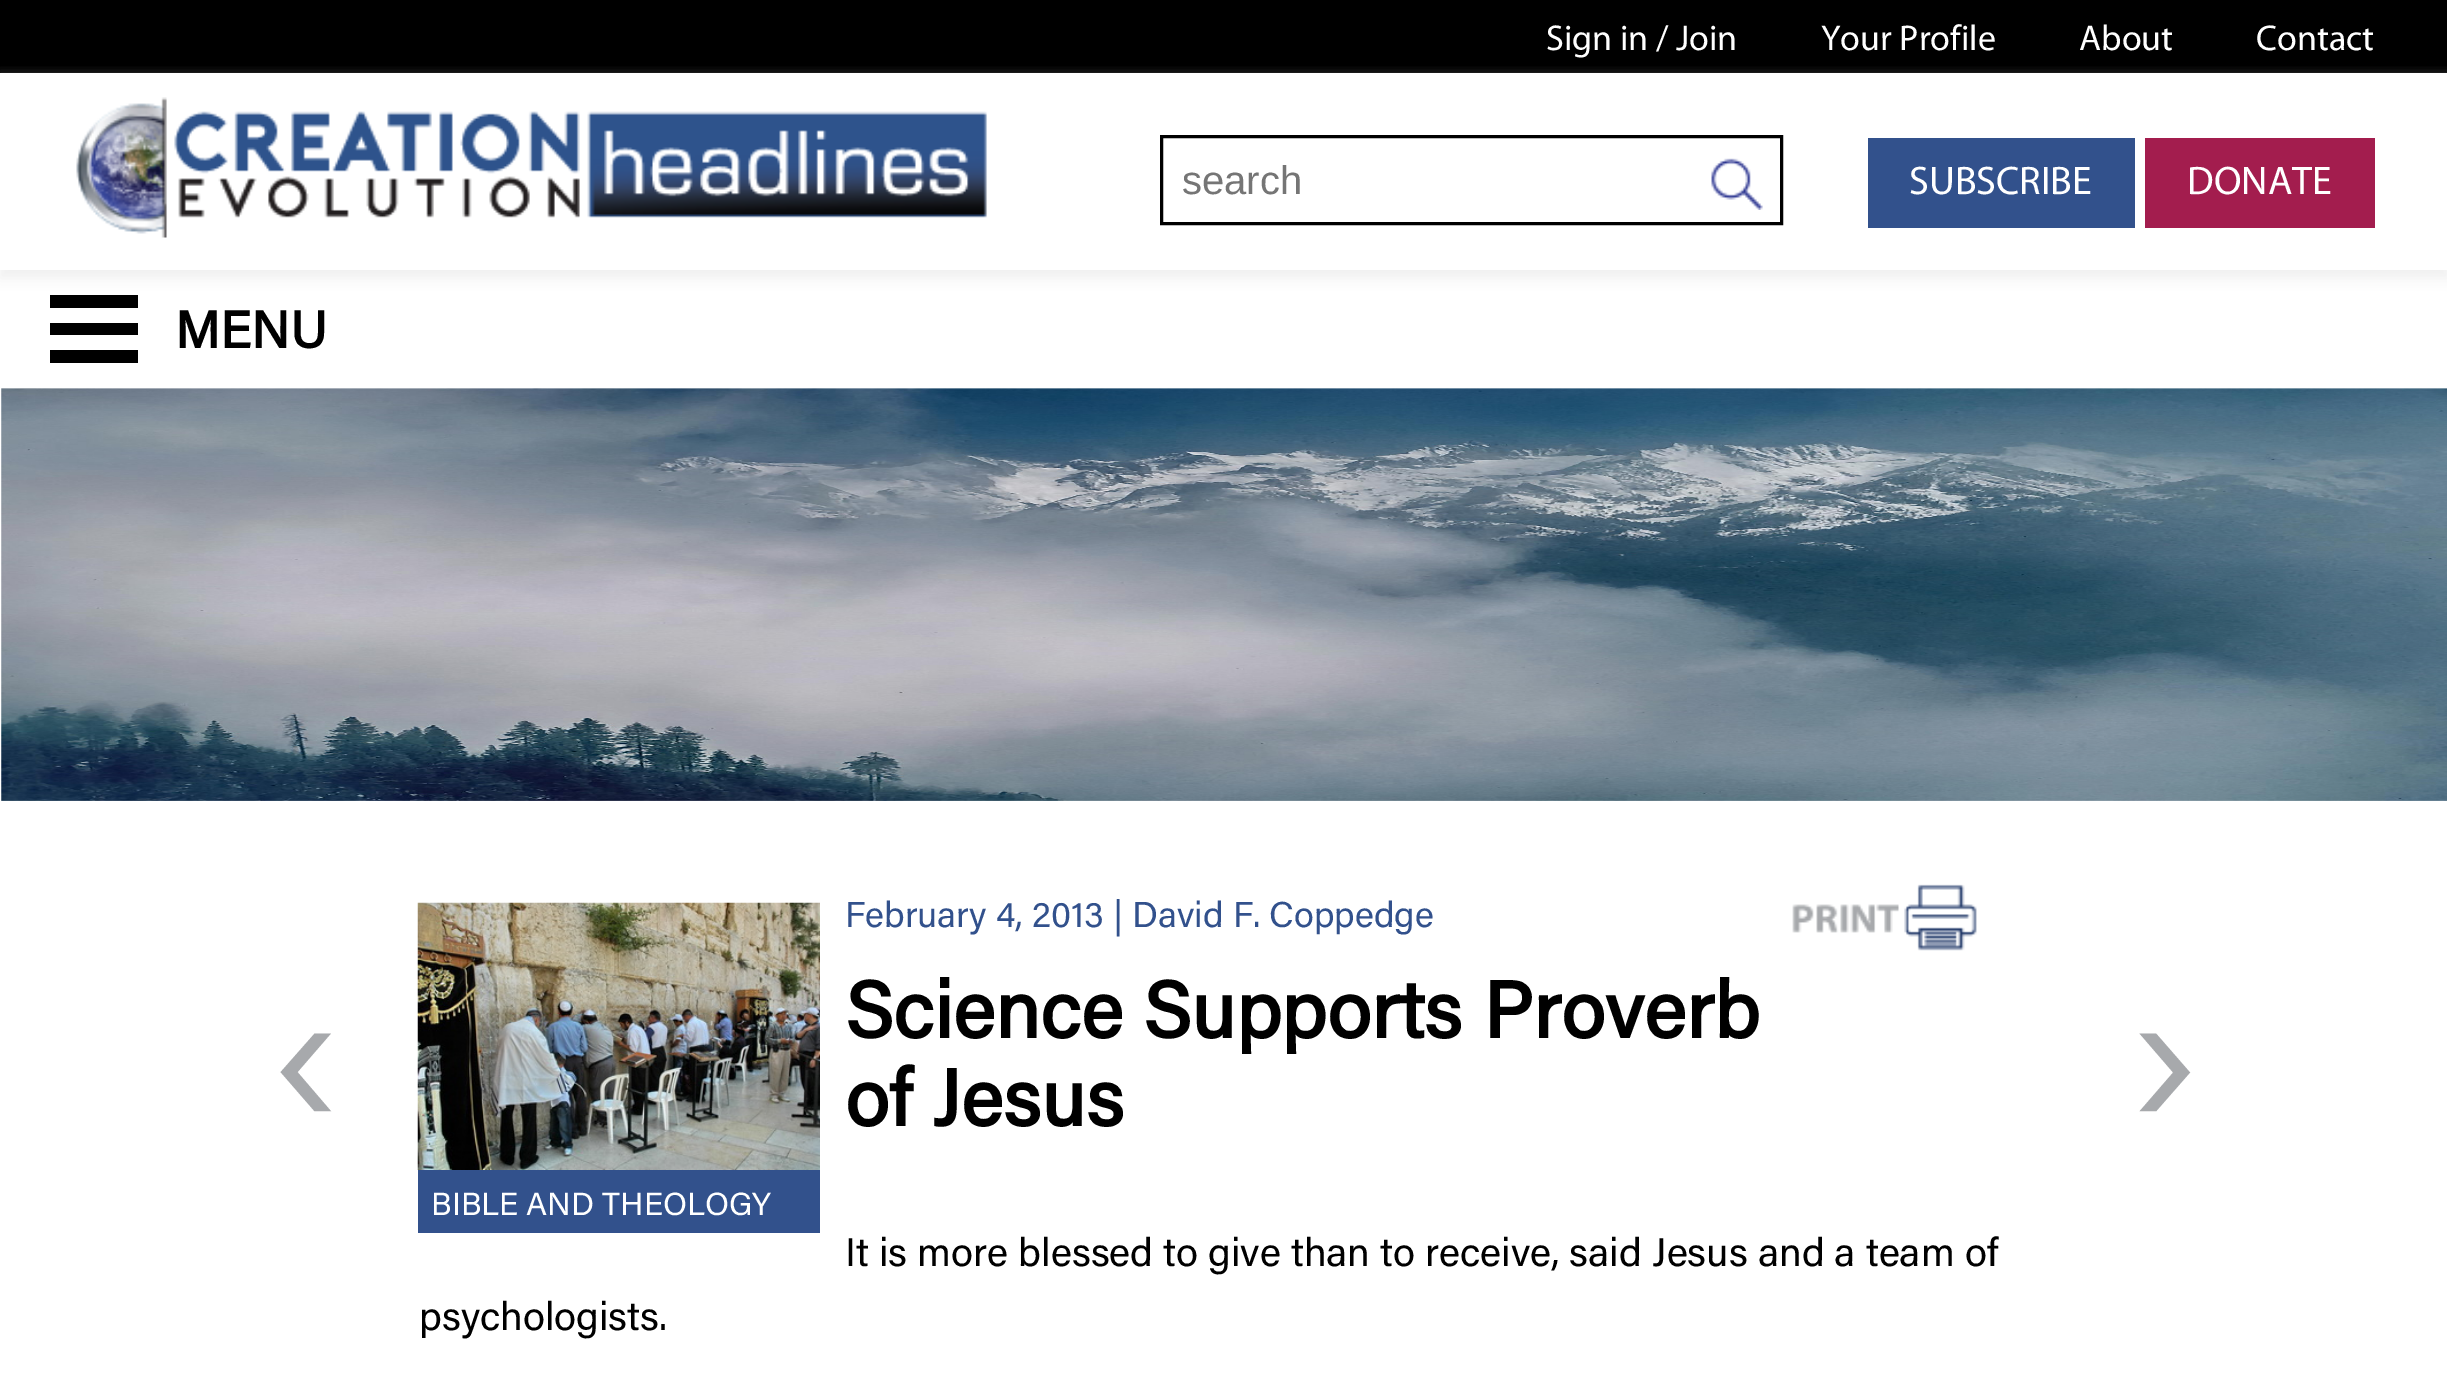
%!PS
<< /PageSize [2447 1377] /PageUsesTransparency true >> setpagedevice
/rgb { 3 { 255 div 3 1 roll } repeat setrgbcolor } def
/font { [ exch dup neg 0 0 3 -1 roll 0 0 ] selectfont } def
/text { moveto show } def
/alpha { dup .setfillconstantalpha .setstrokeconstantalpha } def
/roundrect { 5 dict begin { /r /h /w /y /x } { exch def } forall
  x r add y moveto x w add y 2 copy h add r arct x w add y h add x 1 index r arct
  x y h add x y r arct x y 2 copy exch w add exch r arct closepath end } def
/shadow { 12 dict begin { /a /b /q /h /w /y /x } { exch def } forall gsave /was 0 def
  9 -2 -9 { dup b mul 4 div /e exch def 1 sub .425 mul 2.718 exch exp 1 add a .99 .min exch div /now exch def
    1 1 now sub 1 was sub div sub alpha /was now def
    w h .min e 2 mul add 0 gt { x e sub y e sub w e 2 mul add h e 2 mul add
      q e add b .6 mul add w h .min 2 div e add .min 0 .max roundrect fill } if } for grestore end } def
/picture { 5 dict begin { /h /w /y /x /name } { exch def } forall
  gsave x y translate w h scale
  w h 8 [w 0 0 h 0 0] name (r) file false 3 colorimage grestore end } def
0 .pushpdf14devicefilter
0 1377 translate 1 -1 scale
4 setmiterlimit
255 255 255 rgb
0 0 2447 1377 rectfill
0 0 0 rgb
0 0 2447 73 rectfill
50 295 88 13 rectfill
gsave
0 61 moveto 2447 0 rlineto 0 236 rlineto -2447 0 rlineto closepath 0 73 moveto 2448 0 rlineto 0 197 rlineto -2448 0 rlineto closepath eoclip newpath
239 239 239 rgb
0 80 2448 198 0 6 1 shadow
grestore
(img_01.rgb) 76 97 911 141 picture
3 setlinewidth
1161.5 136.5 620 87 rectstroke
(img_02.rgb) 1711 158 52 52 picture
50 81 140 rgb
1868 138 267 90 rectfill
163 29 78 rgb
2145 138 230 90 rectfill
0 0 0 rgb
50 323 88 12 rectfill
50 350 88 13 rectfill
(img_03.rgb) 1 388 2446 413 picture
(img_04.rgb) 1792 884 185 67 picture
(img_05.rgb) 417 902 403 268 picture
50 81 140 rgb
418 1170 402 63 rectfill
/Myriad-Regular 36 font
255 255 255 rgb
(Sign in / Join) 1546 50 text
(Your Profile) 1821 50 text
(About) 2079 50 text
(Contact) 2256 50 text
/LiberationSans-Regular 40 font
117 117 117 rgb
(search) 1182 194 text
/Myriad-Regular 40 font
255 255 255 rgb
(SUBSCRIBE) 1909 194 text
(DONATE) 2187 194 text
/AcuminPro-Bold 52 font
0 0 0 rgb
(MENU) 175 348 text
/AcuminPro-Regular 200 font
167 169 172 rgb
(‹) 269 1124 text
/AcuminPro-Regular 36 font
50 81 140 rgb
(February 4, 2013 | David F. Coppedge) 845 927 text
/AcuminPro-Bold 80 font
0 0 0 rgb
(Science Supports Proverb) 845 1038 text
(of Jesus) 845 1126 text
/AcuminPro-Regular 32 font
255 255 255 rgb
(BIBLE AND THEOLOGY) 431 1215 text
/AcuminPro-Regular 40 font
0 0 0 rgb
(It is more blessed to give than to receive, said Jesus and a team of) 845 1266 text
(psychologists.) 419 1330 text
/AcuminPro-Regular 200 font
167 169 172 rgb
(›) 2128 1124 text
.poppdf14devicefilter showpage
